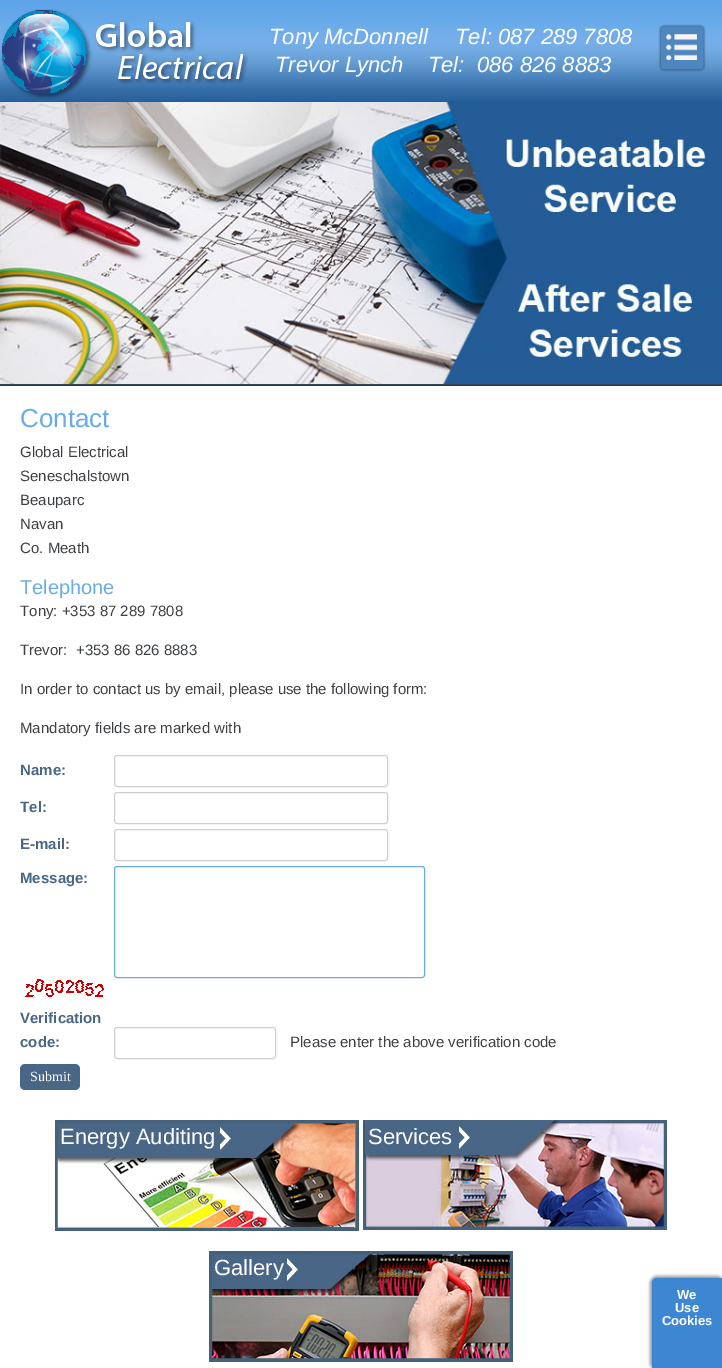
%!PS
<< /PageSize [722 1368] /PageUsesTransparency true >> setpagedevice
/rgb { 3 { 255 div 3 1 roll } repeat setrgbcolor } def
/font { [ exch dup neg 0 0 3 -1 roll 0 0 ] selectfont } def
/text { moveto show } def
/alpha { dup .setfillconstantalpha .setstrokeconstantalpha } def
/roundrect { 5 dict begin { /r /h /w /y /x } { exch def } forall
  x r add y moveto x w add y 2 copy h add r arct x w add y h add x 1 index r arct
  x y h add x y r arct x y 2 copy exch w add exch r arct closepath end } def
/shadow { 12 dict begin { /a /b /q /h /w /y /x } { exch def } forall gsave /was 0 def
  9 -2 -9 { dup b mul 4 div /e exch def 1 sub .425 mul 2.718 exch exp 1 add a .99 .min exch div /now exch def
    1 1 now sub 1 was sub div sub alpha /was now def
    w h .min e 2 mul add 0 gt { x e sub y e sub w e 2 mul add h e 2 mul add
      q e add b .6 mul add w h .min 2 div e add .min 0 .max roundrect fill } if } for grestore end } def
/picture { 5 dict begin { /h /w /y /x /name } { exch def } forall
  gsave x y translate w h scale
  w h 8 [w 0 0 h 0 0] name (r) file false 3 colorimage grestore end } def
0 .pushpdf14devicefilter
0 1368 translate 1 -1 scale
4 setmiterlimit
35 92 151 rgb
0 0 722 1368 rectfill
(img_01.rgb) 0 0 722 101 picture
(img_02.rgb) 1 9 247 90 picture
(img_03.rgb) 658 24 48 48 picture
(img_04.rgb) 0 384 722 2 picture
0 0 0 rgb
0 386 722 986 0 5 0.75 shadow
(img_05.rgb) 0 102 722 282 picture
255 255 255 rgb
0 386 722 982 rectfill
207 207 207 rgb
114.5 755.5 273 31 2.5 roundrect stroke
114.5 792.5 273 31 2.5 roundrect stroke
114.5 829.5 273 31 2.5 roundrect stroke
105 171 233 rgb
114.5 866.5 310 111 2.5 roundrect stroke
(img_06.rgb) 25 979 79 18 picture
207 207 207 rgb
114.5 1027.5 161 31 2.5 roundrect stroke
72 102 133 rgb
20 1064 60 26 5 roundrect fill
(img_07.rgb) 55 1120 304 111 picture
(img_08.rgb) 363 1120 304 110 picture
(img_09.rgb) 209 1251 304 111 picture
0 0 0 rgb
650 1276 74 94 7 1.5 0.4 shadow
61 135 210 rgb
657 1278 moveto 65 0 rlineto 0 90 rlineto -70 0 rlineto 0 -85 rlineto 0 -3 2 -5 5 -5 rcurveto closepath fill
/LiberationSans-Italic 22 font
255 255 255 rgb
(Tony McDonnell) 269 44 text
(Tel: 087 289 7808) 455 44 text
(Trevor Lynch    Tel:  086 826 8883) 275 72 text
/LiberationSans-Regular 26 font
105 171 233 rgb
(Contact) 20 427 text
/LiberationSans-Regular 15 font
61 64 68 rgb
(Global Electrical) 20 457 text
(Seneschalstown) 20 481 text
(Beauparc) 20 505 text
(Navan) 20 529 text
(Co. Meath) 20 553 text
/LiberationSans-Regular 20 font
105 171 233 rgb
(Telephone) 20 594 text
/LiberationSans-Regular 15 font
61 64 68 rgb
(Tony: +353 87 289 7808) 20 616 text
(Trevor:  +353 86 826 8883) 20 655 text
(In order to contact us by email, please use the following form:) 20 694 text
(Mandatory fields are marked with) 20 733 text
/LiberationSans-Bold 15 font
72 102 133 rgb
(Name:) 20 775 text
(Tel:) 20 812 text
(E-mail:) 20 849 text
(Message:) 20 883 text
(Verification) 20 1023 text
(code:) 20 1047 text
/LiberationSans-Regular 15 font
61 64 68 rgb
(Please enter the above verification code) 290 1047 text
/LiberationSerif-Regular 14 font
255 255 255 rgb
(Submit) 30 1081 text
/LiberationSans-Regular 22 font
(Energy Auditing) 60 1144 text
(Services) 368 1144 text
(Gallery) 214 1275 text
/LiberationSans-Bold 13 font
(We) 677 1299 text
(Use) 675 1312 text
(Cookies) 662 1325 text
.poppdf14devicefilter showpage
